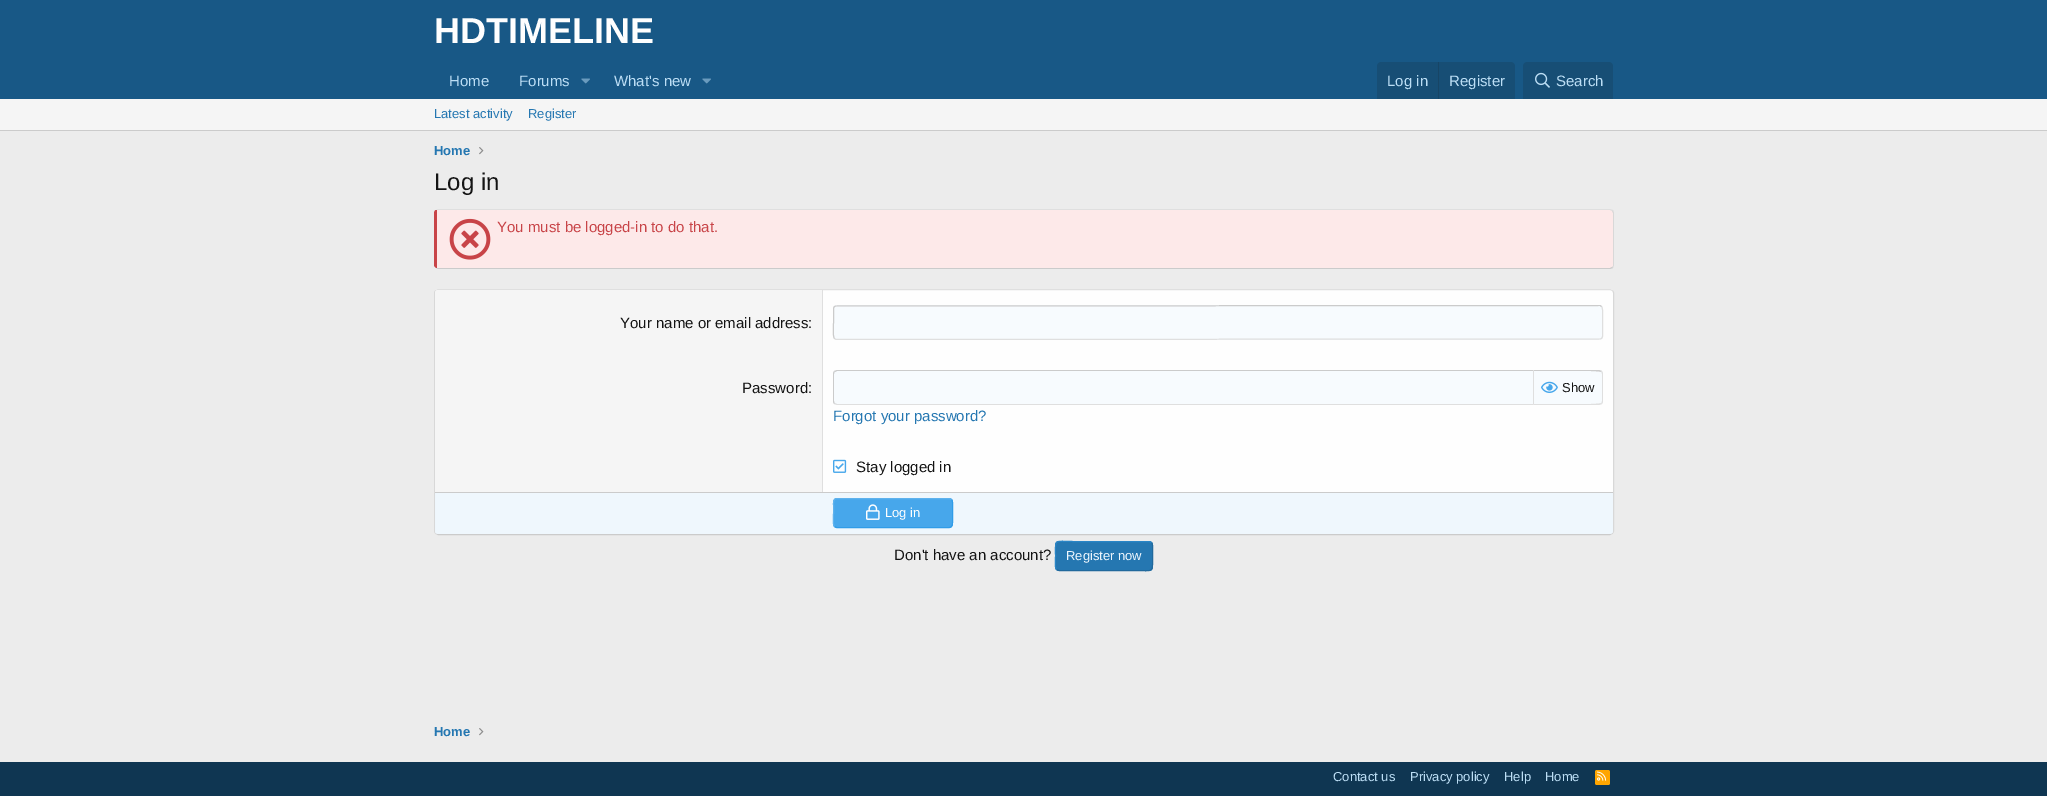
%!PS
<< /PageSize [2047 796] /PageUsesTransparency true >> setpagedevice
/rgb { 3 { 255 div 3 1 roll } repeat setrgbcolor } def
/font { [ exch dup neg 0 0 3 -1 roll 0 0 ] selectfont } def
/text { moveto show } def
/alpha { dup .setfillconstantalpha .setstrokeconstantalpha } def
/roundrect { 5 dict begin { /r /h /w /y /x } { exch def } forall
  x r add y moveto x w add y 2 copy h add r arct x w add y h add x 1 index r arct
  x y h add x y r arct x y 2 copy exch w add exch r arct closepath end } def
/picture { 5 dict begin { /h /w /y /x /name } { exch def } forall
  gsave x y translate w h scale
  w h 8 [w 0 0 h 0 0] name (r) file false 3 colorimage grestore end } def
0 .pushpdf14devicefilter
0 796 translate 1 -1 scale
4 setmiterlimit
236 236 236 rgb
0 0 2047 796 rectfill
24 88 134 rgb
0 0 2047 99 rectfill
(img_01.rgb) 581 78 9 6 picture
(img_01.rgb) 702 78 9 6 picture
23 78 117 rgb
1381 62 moveto 130 0 rlineto 2 0 4 2 4 4 rcurveto 0 33 rlineto -138 0 rlineto 0 -33 rlineto 0 -2 2 -4 4 -4 rcurveto closepath fill
23 69 102 rgb
1438 62 1 37 rectfill
23 78 117 rgb
1527 62 moveto 82 0 rlineto 2 0 4 2 4 4 rcurveto 0 33 rlineto -90 0 rlineto 0 -33 rlineto 0 -2 2 -4 4 -4 rcurveto closepath fill
(img_02.rgb) 1535 72 15 16 picture
245 245 245 rgb
0 99 2047 31 rectfill
203 203 203 rgb
0 130 2047 1 rectfill
(img_03.rgb) 479 147 5 8 picture
253 233 233 rgb
438 210 moveto 1172 0 rlineto 2 0 3 1 3 3 rcurveto 0 52 rlineto 0 2 -1 3 -3 3 rcurveto -1172 0 rlineto -1 0 -1 -1 -1 -3 rcurveto 0 -52 rlineto 0 -2 0 -3 1 -3 rcurveto closepath fill
223 223 223 rgb
438 209 moveto -2 1 rlineto 1 0 rlineto 1173 0 rlineto 2 1 rlineto 1 -1 rlineto -3 -1 rlineto closepath fill
216 216 216 rgb
1614 265 moveto 0 -52 rlineto -1 -3 rlineto -1 1 rlineto 1 2 rlineto 0 53 rlineto -1 1 rlineto 1 1 rlineto closepath fill
203 203 203 rgb
438 269 moveto 1172 0 rlineto 3 -1 rlineto -1 -1 rlineto -2 1 rlineto -1173 0 rlineto -1 0 rlineto closepath fill
200 68 72 rgb
434 213 moveto 0 53 rlineto 2 2 rlineto 1 0 rlineto 0 -1 rlineto 0 -56 rlineto 0 -1 rlineto -1 0 rlineto -1 0 -2 2 -2 3 rcurveto closepath fill
(img_04.rgb) 449 218 42 42 picture
254 254 254 rgb
434 289 1180 246 4 roundrect fill
223 223 223 rgb
435.5 290.5 moveto 2.5 -1 rlineto 1172 0 rlineto 2.5 1 rlineto stroke
216 216 216 rgb
1612.5 290.5 moveto 0.5 0.5 1 1.5 1 2.5 rcurveto 0 238 rlineto 0 1 -0.5 2 -1 2.5 rcurveto stroke
203 203 203 rgb
1612.5 533.5 moveto -2.5 1 rlineto -1172 0 rlineto -2.5 -1 rlineto stroke
216 216 216 rgb
435.5 533.5 moveto -0.5 -0.5 -1 -1.5 -1 -2.5 rcurveto 0 -238 rlineto 0 -1 0.5 -2 1 -2.5 rcurveto stroke
245 245 245 rgb
438 290 moveto 385 0 rlineto 0 65 rlineto -388 0 rlineto 0 -62 rlineto 0 -1.5 1.5 -3 3 -3 rcurveto closepath fill
223 223 223 rgb
822 290 1 202 rectfill
247 251 254 rgb
833 305 770 35 4 roundrect fill
223 223 223 rgb
1601.5 306.5 moveto 2 2.5 1 13 1 16 rcurveto 0 14 rlineto -0.5 1.5 rlineto -1.5 1 rlineto -764.5 0.5 rlineto -1.5 -1 rlineto stroke
203 203 203 rgb
834.5 338.5 moveto -2 -2.5 -1 -13 -1 -16 rcurveto 0 -14 rlineto 0.5 -1.5 rlineto 1.5 -1 rlineto 764.5 -0.5 rlineto 1.5 1 rlineto stroke
245 245 245 rgb
435 355 387 137 rectfill
247 251 254 rgb
837 370 moveto 696 0 rlineto 0 35 rlineto -696 0 rlineto -2 0 -4 -2 -4 -4 rcurveto 0 -27 rlineto 0 -2 2 -4 4 -4 rcurveto closepath fill
203 203 203 rgb
837 370 moveto -3 1 rlineto 1 1 rlineto 2 -1 rlineto 696 0 rlineto 0 -1 rlineto closepath fill
223 223 223 rgb
1533 405 moveto 0 -1 rlineto -696 0 rlineto -2 -1 rlineto -1 1 rlineto 3 1 rlineto closepath fill
203 203 203 rgb
833 374 moveto 0 27 rlineto 0 1 0.5 2 1 3 rcurveto 1 -1 rlineto -1 0 -1 -1 -1 -2 rcurveto 0 -27 rlineto 0 -1 0 -2 1 -2 rcurveto -1 -1 rlineto -0.5 1 -1 2 -1 3 rcurveto closepath fill
247 251 254 rgb
1533 370 moveto 66 0 rlineto 2 0 4 2 4 4 rcurveto 0 27 rlineto 0 2 -2 4 -4 4 rcurveto -66 0 rlineto closepath fill
203 203 203 rgb
1533 370 moveto 1 1 rlineto 7 0 66 -1 67 1 rcurveto 1 -1 rlineto -3 -1 rlineto closepath fill
223 223 223 rgb
1603 401 moveto 0 -27 rlineto 0 -1 -0.5 -2 -1 -3 rcurveto -1 1 rlineto 1 0 1 1 1 2 rcurveto 0 27 rlineto 0 1 0 2 -1 2 rcurveto 1 1 rlineto 0.5 -1 1 -2 1 -3 rcurveto closepath fill
1599 405 moveto 3 -1 rlineto -1 -1 rlineto -1 2 -60 1 -67 1 rcurveto -1 1 rlineto closepath fill
1533 370 moveto 0 35 rlineto 1 -1 rlineto 0 -33 rlineto closepath fill
(img_05.rgb) 1541 381 17 12 picture
(img_06.rgb) 833 459 14 14 picture
0.9 alpha
237 246 253 rgb
435 492 moveto 1178 0 rlineto 0 39 rlineto 0 1.5 -1.5 3 -3 3 rcurveto -1172 0 rlineto -1.5 0 -3 -1.5 -3 -3 rcurveto closepath fill
1 alpha
203 203 203 rgb
435 492 1178 1 rectfill
71 167 235 rgb
833 498 120 30 4 roundrect fill
48 156 232 rgb
951.5 499.5 moveto 2 2 1 10.5 1 13.5 rcurveto 0 7.5 rlineto 0 2.5 0.5 7 -3.5 7 rcurveto -112.5 0 rlineto -2 -1 rlineto stroke
94 178 237 rgb
834.5 526.5 moveto -2 -2 -1 -10.5 -1 -13.5 rcurveto 0 -7.5 rlineto 0 -2.5 -0.5 -7 3.5 -7 rcurveto 112.5 0 rlineto 2 1 rlineto stroke
(img_07.rgb) 866 504 14 16 picture
37 119 177 rgb
1055 541 98 30 4 roundrect fill
33 105 156 rgb
1151.5 542.5 moveto 2 2 1 10.5 1 13.5 rcurveto 0 18 2 14.5 -18.5 14.5 rcurveto -75 0 rlineto -2.5 -1 rlineto stroke
41 133 198 rgb
1056.5 569.5 moveto -2 -2 -1 -10.5 -1 -13.5 rcurveto 0 -18 -2 -14.5 18.5 -14.5 rcurveto 75 0 rlineto 2.5 1 rlineto stroke
(img_03.rgb) 479 728 5 8 picture
15 54 82 rgb
0 762 2047 34 rectfill
255 165 0 rgb
1595 770 15 15 2 roundrect fill
(img_08.rgb) 1597 771 10 10 picture
/LiberationSans-Bold 36 font
254 254 254 rgb
(HDTIMELINE) 434 43 text
/LiberationSans-Regular 15 font
188 222 245 rgb
(Home) 449 86 text
(Forums) 519 86 text
(What's new) 614 86 text
(Log in) 1387 86 text
(Register) 1449 86 text
(Search) 1556 86 text
/LiberationSans-Regular 13 font
37 119 177 rgb
(Latest activity) 434 118 text
(Register) 528 118 text
/LiberationSans-Bold 13 font
(Home) 434 155 text
/LiberationSans-Regular 24 font
20 20 20 rgb
(Log in) 434 190 text
/LiberationSans-Regular 15 font
200 68 72 rgb
(You must be logged-in to do that.) 497 232 text
20 20 20 rgb
(Your name or email address:) 620 328 text
(Password:) 742 393 text
/LiberationSans-Regular 13 font
(Show) 1562 392 text
/LiberationSans-Regular 15 font
37 119 177 rgb
(Forgot your password?) 833 421 text
20 20 20 rgb
(Stay logged in) 856 472 text
/LiberationSans-Regular 13 font
254 254 254 rgb
(Log in) 885 517 text
/LiberationSans-Regular 15 font
20 20 20 rgb
(Don't have an account?) 894 560 text
/LiberationSans-Regular 13 font
237 246 253 rgb
(Register now) 1066 560 text
/LiberationSans-Bold 13 font
37 119 177 rgb
(Home) 434 736 text
/LiberationSans-Regular 13 font
188 222 245 rgb
(Contact us) 1333 781 text
(Privacy policy) 1410 781 text
(Help) 1504 781 text
(Home) 1545 781 text
.poppdf14devicefilter showpage
